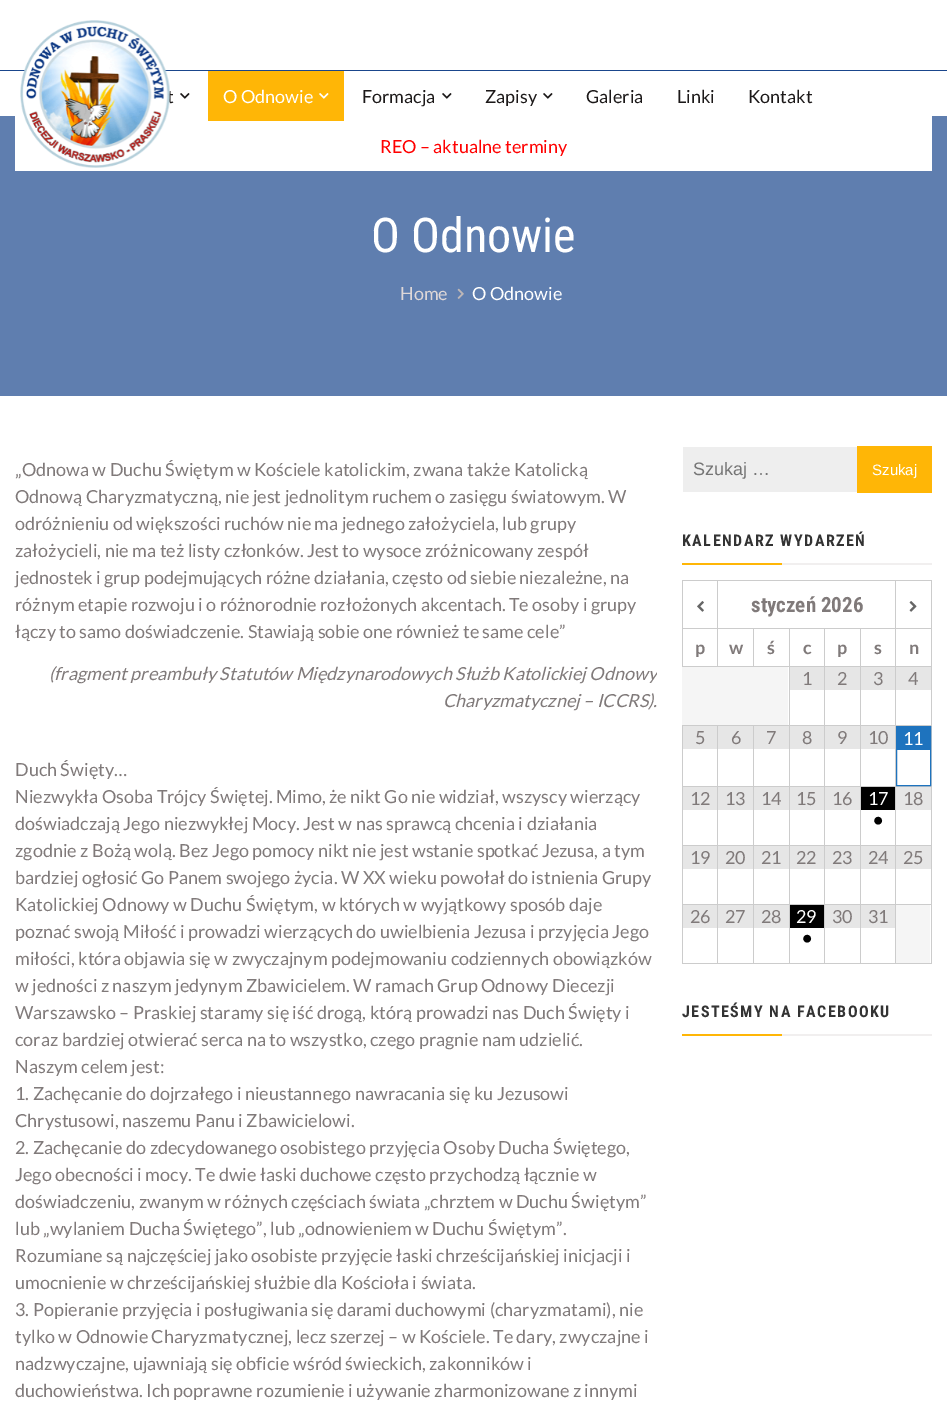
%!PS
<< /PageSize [947 1403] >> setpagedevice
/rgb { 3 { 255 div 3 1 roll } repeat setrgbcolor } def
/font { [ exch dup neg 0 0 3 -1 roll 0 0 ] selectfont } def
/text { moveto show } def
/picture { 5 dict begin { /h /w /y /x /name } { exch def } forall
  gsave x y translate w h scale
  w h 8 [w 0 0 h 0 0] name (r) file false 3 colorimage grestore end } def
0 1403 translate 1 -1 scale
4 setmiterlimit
255 255 255 rgb
0 0 947 1403 rectfill
26 70 140 rgb
0 70 947 1 rectfill
95 126 175 rgb
0 116 947 280 rectfill
255 255 255 rgb
15 116 917 55 rectfill
(img_02.rgb) 180 93 10 6 picture
255 182 6 rgb
208 71 136 50 rectfill
(img_03.rgb) 319 93 10 6 picture
(img_02.rgb) 442 93 10 6 picture
(img_02.rgb) 543 93 10 6 picture
(img_04.rgb) 457 288 7 11 picture
238 238 238 rgb
683 447 174 45 rectfill
255 182 6 rgb
857 446 75 47 rectfill
241 239 239 rgb
782 563 150 2 rectfill
255 182 6 rgb
682 563 100 2 rectfill
204 204 204 rgb
895 580 37 1 rectfill
895 628 37 1 rectfill
895 666 37 1 rectfill
895 725 37 1 rectfill
895 786 37 1 rectfill
895 845 37 1 rectfill
931 904 1 60 rectfill
931 845 1 60 rectfill
860 904 36 1 rectfill
895 963 37 1 rectfill
895 904 1 60 rectfill
895 904 37 1 rectfill
895 845 1 60 rectfill
860 845 36 1 rectfill
895 786 1 60 rectfill
860 786 36 1 rectfill
895 725 1 62 rectfill
860 725 36 1 rectfill
895 666 1 60 rectfill
860 666 36 1 rectfill
895 628 1 39 rectfill
860 628 36 1 rectfill
895 580 1 49 rectfill
717 580 179 1 rectfill
860 963 36 1 rectfill
860 904 1 60 rectfill
824 904 37 1 rectfill
860 845 1 60 rectfill
824 845 37 1 rectfill
860 786 1 60 rectfill
824 786 37 1 rectfill
860 725 1 62 rectfill
824 725 37 1 rectfill
860 666 1 60 rectfill
824 666 37 1 rectfill
860 628 1 39 rectfill
824 628 37 1 rectfill
824 963 37 1 rectfill
824 904 1 60 rectfill
789 904 36 1 rectfill
824 845 1 60 rectfill
789 845 36 1 rectfill
824 786 1 60 rectfill
789 786 36 1 rectfill
824 725 1 62 rectfill
789 725 36 1 rectfill
824 666 1 60 rectfill
789 666 36 1 rectfill
824 628 1 39 rectfill
789 628 36 1 rectfill
789 963 36 1 rectfill
789 904 1 60 rectfill
753 904 37 1 rectfill
789 845 1 60 rectfill
753 845 37 1 rectfill
789 786 1 60 rectfill
753 786 37 1 rectfill
789 725 1 62 rectfill
753 725 37 1 rectfill
789 666 1 60 rectfill
789 628 1 39 rectfill
753 628 37 1 rectfill
753 666 37 1 rectfill
753 628 1 39 rectfill
717 628 37 1 rectfill
717 666 37 1 rectfill
717 628 1 39 rectfill
682 628 36 1 rectfill
717 580 1 49 rectfill
682 580 36 1 rectfill
682 666 36 1 rectfill
682 628 1 39 rectfill
682 580 1 49 rectfill
(img_05.rgb) 697 601 7 11 picture
931 786 1 60 rectfill
931 725 1 62 rectfill
931 666 1 60 rectfill
931 628 1 39 rectfill
931 580 1 49 rectfill
(img_06.rgb) 909 601 8 11 picture
245 245 245 rgb
682 667 106 58 rectfill
230 230 230 rgb
790 667 34 23 rectfill
825 667 35 23 rectfill
861 667 34 23 rectfill
896 667 35 23 rectfill
204 204 204 rgb
753 963 37 1 rectfill
753 904 1 60 rectfill
717 904 37 1 rectfill
753 845 1 60 rectfill
717 845 37 1 rectfill
753 786 1 60 rectfill
717 786 37 1 rectfill
753 725 1 62 rectfill
717 725 37 1 rectfill
717 963 37 1 rectfill
717 904 1 60 rectfill
682 904 36 1 rectfill
717 845 1 60 rectfill
682 845 36 1 rectfill
717 786 1 60 rectfill
682 786 36 1 rectfill
717 725 1 62 rectfill
682 725 36 1 rectfill
682 963 36 1 rectfill
682 904 1 60 rectfill
682 845 1 60 rectfill
682 786 1 60 rectfill
682 725 1 62 rectfill
230 230 230 rgb
683 726 34 23 rectfill
718 726 35 23 rectfill
754 726 35 23 rectfill
790 726 34 23 rectfill
825 726 35 23 rectfill
861 726 34 23 rectfill
30 115 190 rgb
896.5 726.5 34 59 rectstroke
897 727 33 23 rectfill
230 230 230 rgb
683 787 34 23 rectfill
718 787 35 23 rectfill
754 787 35 23 rectfill
790 787 34 23 rectfill
825 787 35 23 rectfill
0 0 0 rgb
861 787 34 23 rectfill
230 230 230 rgb
896 787 35 23 rectfill
683 846 34 23 rectfill
718 846 35 23 rectfill
754 846 35 23 rectfill
790 846 34 23 rectfill
825 846 35 23 rectfill
861 846 34 23 rectfill
896 846 35 23 rectfill
683 905 34 23 rectfill
718 905 35 23 rectfill
754 905 35 23 rectfill
0 0 0 rgb
790 905 34 23 rectfill
230 230 230 rgb
825 905 35 23 rectfill
861 905 34 23 rectfill
245 245 245 rgb
896 905 34 58 rectfill
241 239 239 rgb
782 1034 150 2 rectfill
255 182 6 rgb
682 1034 100 2 rectfill
/Lato-Regular 18 font
28 25 25 rgb
(t) 167 103 text
(img_01.rgb) 20 20 150 148 picture
255 255 255 rgb
(O Odnowie) 223 103 text
28 25 25 rgb
(Formacja) 362 103 text
(Zapisy) 485 103 text
(Galeria) 586 103 text
(Linki) 677 103 text
(Kontakt) 748 103 text
255 0 0 rgb
(REO – aktualne terminy) 380 153 text
/RobotoCondensed-Regular 48 font
255 255 255 rgb
(O Odnowie) 371 252 text
/Lato-Regular 18 font
223 216 216 rgb
(Home) 400 300 text
255 255 255 rgb
(O Odnowie) 472 300 text
128 122 122 rgb
(„Odnowa w Duchu Świętym w Kościele katolickim, zwana także Katolicką) 15 476 text
(Odnową Charyzmatyczną, nie jest jednolitym ruchem o zasięgu światowym. W) 15 503 text
(odróżnieniu od większości ruchów nie ma jednego założyciela, lub grupy) 15 530 text
(założycieli, nie ma też listy członków. Jest to wysoce zróżnicowany zespół) 15 557 text
(jednostek i grup podejmujących różne działania, często od siebie niezależne, na) 15 584 text
(różnym etapie rozwoju i o różnorodnie rozłożonych akcentach. Te osoby i grupy) 15 611 text
(łączy to samo doświadczenie. Stawiają sobie one również te same cele”) 15 638 text
gsave
15 446 642 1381 rectclip
/Lato-Italic 18 font
(\(fragment preambuły Statutów Międzynarodowych Służb Katolickiej Odnowy) 49 680 text
grestore
/Lato-Italic 18 font
(Charyzmatycznej – ICCRS\).) 443 707 text
/Lato-Regular 18 font
(Duch Święty…) 15 776 text
(Niezwykła Osoba Trójcy Świętej. Mimo, że nikt Go nie widział, wszyscy wierzący) 15 803 text
(doświadczają Jego niezwykłej Mocy. Jest w nas sprawcą chcenia i działania) 15 830 text
(zgodnie z Bożą wolą. Bez Jego pomocy nikt nie jest wstanie spotkać Jezusa, a tym) 15 857 text
(bardziej ogłosić Go Panem swojego życia. W XX wieku powołał do istnienia Grupy) 15 884 text
(Katolickiej Odnowy w Duchu Świętym, w których w wyjątkowy sposób daje) 15 911 text
(poznać swoją Miłość i prowadzi wierzących do uwielbienia Jezusa i przyjęcia Jego) 15 938 text
(miłości, która objawia się w zwyczajnym podejmowaniu codziennych obowiązków) 15 965 text
(w jedności z naszym jedynym Zbawicielem. W ramach Grup Odnowy Diecezji) 15 992 text
(Warszawsko – Praskiej staramy się iść drogą, którą prowadzi nas Duch Święty i) 15 1019 text
(coraz bardziej otwierać serca na to wszystko, czego pragnie nam udzielić.) 15 1046 text
(Naszym celem jest:) 15 1073 text
(1. Zachęcanie do dojrzałego i nieustannego nawracania się ku Jezusowi) 15 1100 text
(Chrystusowi, naszemu Panu i Zbawicielowi.) 15 1127 text
(2. Zachęcanie do zdecydowanego osobistego przyjęcia Osoby Ducha Świętego,) 15 1154 text
(Jego obecności i mocy. Te dwie łaski duchowe często przychodzą łącznie w) 15 1181 text
(doświadczeniu, zwanym w różnych częściach świata „chrztem w Duchu Świętym”) 15 1208 text
(lub „wylaniem Ducha Świętego”, lub „odnowieniem w Duchu Świętym”.) 15 1235 text
(Rozumiane są najczęściej jako osobiste przyjęcie łaski chrześcijańskiej inicjacji i) 15 1262 text
(umocnienie w chrześcijańskiej służbie dla Kościoła i świata.) 15 1289 text
(3. Popieranie przyjęcia i posługiwania się darami duchowymi \(charyzmatami\), nie) 15 1316 text
(tylko w Odnowie Charyzmatycznej, lecz szerzej – w Kościele. Te dary, zwyczajne i) 15 1343 text
(nadzwyczajne, ujawniają się obficie wśród świeckich, zakonników i) 15 1370 text
(duchowieństwa. Ich poprawne rozumienie i używanie zharmonizowane z innymi) 15 1397 text
/LiberationSans-Regular 18 font
117 117 117 rgb
(Szukaj …) 693 475 text
/LiberationSans-Regular 15 font
255 255 255 rgb
(Szukaj) 872 475 text
/RobotoCondensed-Bold 16 font
51 51 51 rgb
682 546 moveto 1.5 0 (KALENDARZ WYDARZEŃ) ashow
/RobotoCondensed-Bold 21 font
128 122 122 rgb
(styczeń 2026) 751 612 text
/Lato-Bold 18 font
(p) 695 654 text
(w) 729 654 text
(ś) 767 654 text
(c) 803 654 text
(p) 837 654 text
(s) 874 654 text
(n) 909 654 text
/Lato-Regular 18 font
(1) 802 685 text
(2) 837 685 text
(3) 873 685 text
(4) 908 685 text
(5) 695 744 text
(6) 731 744 text
(7) 766 744 text
(8) 802 744 text
(9) 837 744 text
(10) 868 744 text
255 255 255 rgb
(11) 903 745 text
128 122 122 rgb
(12) 690 805 text
(13) 725 805 text
(14) 761 805 text
(15) 796 805 text
(16) 832 805 text
255 255 255 rgb
(17) 868 805 text
/Lato-Bold 18 font
0 0 0 rgb
(•) 873 826 text
/Lato-Regular 18 font
128 122 122 rgb
(18) 903 805 text
(19) 690 864 text
(20) 725 864 text
(21) 761 864 text
(22) 796 864 text
(23) 832 864 text
(24) 868 864 text
(25) 903 864 text
(26) 690 923 text
(27) 725 923 text
(28) 761 923 text
255 255 255 rgb
(29) 796 923 text
/Lato-Bold 18 font
0 0 0 rgb
(•) 802 944 text
/Lato-Regular 18 font
128 122 122 rgb
(30) 832 923 text
(31) 868 923 text
/RobotoCondensed-Bold 16 font
51 51 51 rgb
682 1017 moveto 1.5 0 (JESTEŚMY NA FACEBOOKU) ashow
showpage
